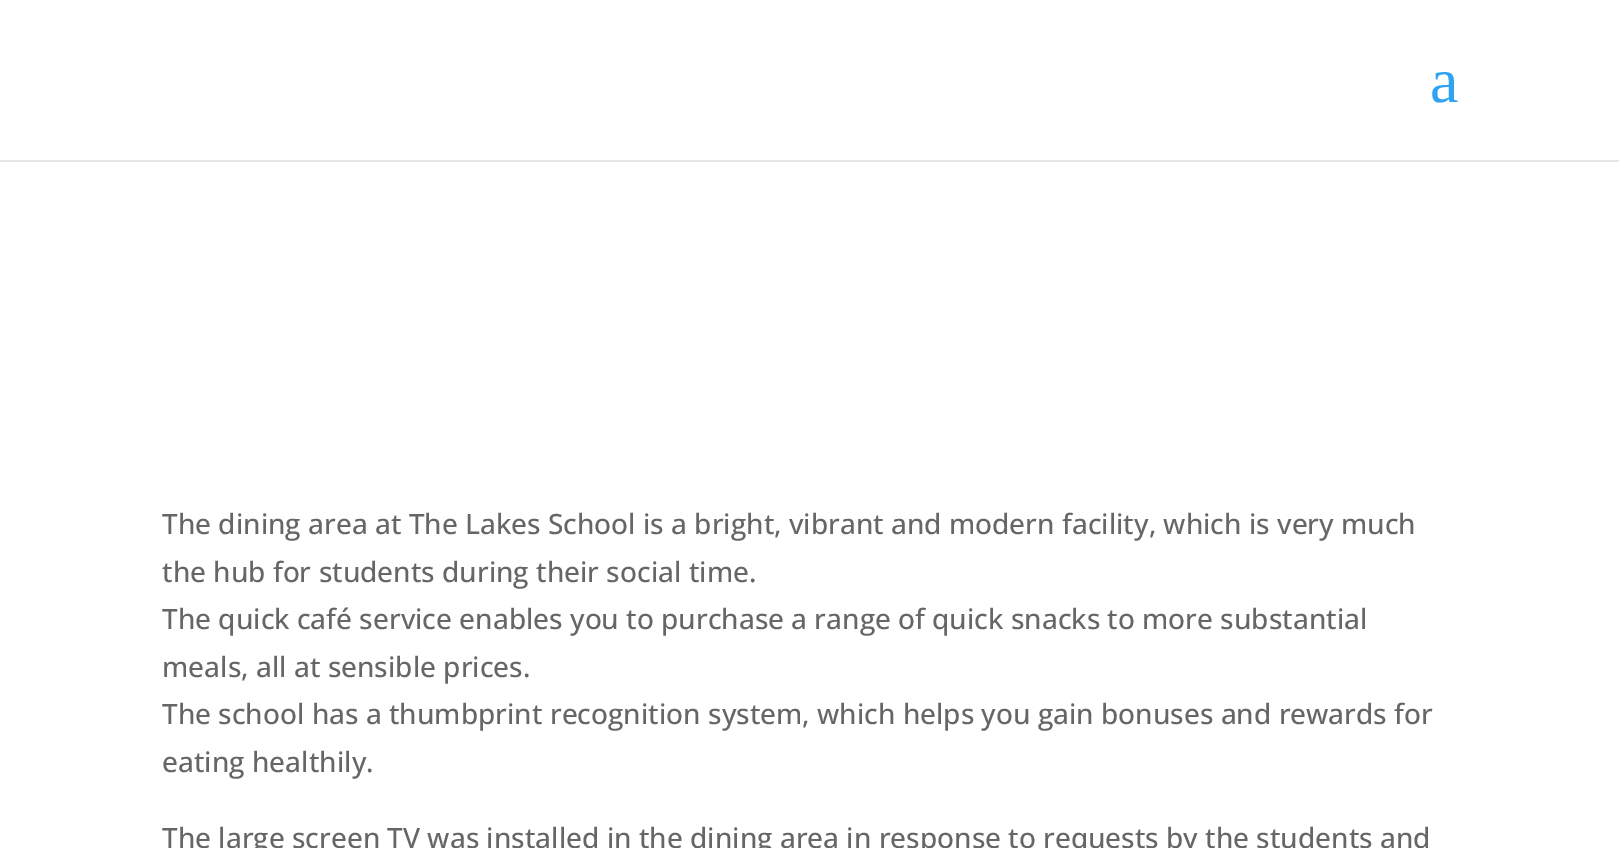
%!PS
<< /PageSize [1619 848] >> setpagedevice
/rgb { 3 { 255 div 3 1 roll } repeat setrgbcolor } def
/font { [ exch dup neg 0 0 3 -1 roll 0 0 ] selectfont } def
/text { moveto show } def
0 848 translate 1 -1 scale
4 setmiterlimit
255 255 255 rgb
0 0 1619 848 rectfill
230 230 230 rgb
0 160 1619 2 rectfill
/LiberationSerif-Regular 64 font
46 163 242 rgb
(a) 1430 102 text
/OpenSans-Medium 28 font
102 102 102 rgb
(The dining area at The Lakes School is a bright, vibrant and modern facility, which is very much) 162 534 text
(the hub for students during their social time.) 162 582 text
(The quick café service enables you to purchase a range of quick snacks to more substantial) 162 629 text
(meals, all at sensible prices.) 162 677 text
(The school has a thumbprint recognition system, which helps you gain bonuses and rewards for) 162 724 text
(eating healthily.) 162 772 text
(The large screen TV was installed in the dining area in response to requests by the students and) 162 848 text
showpage
